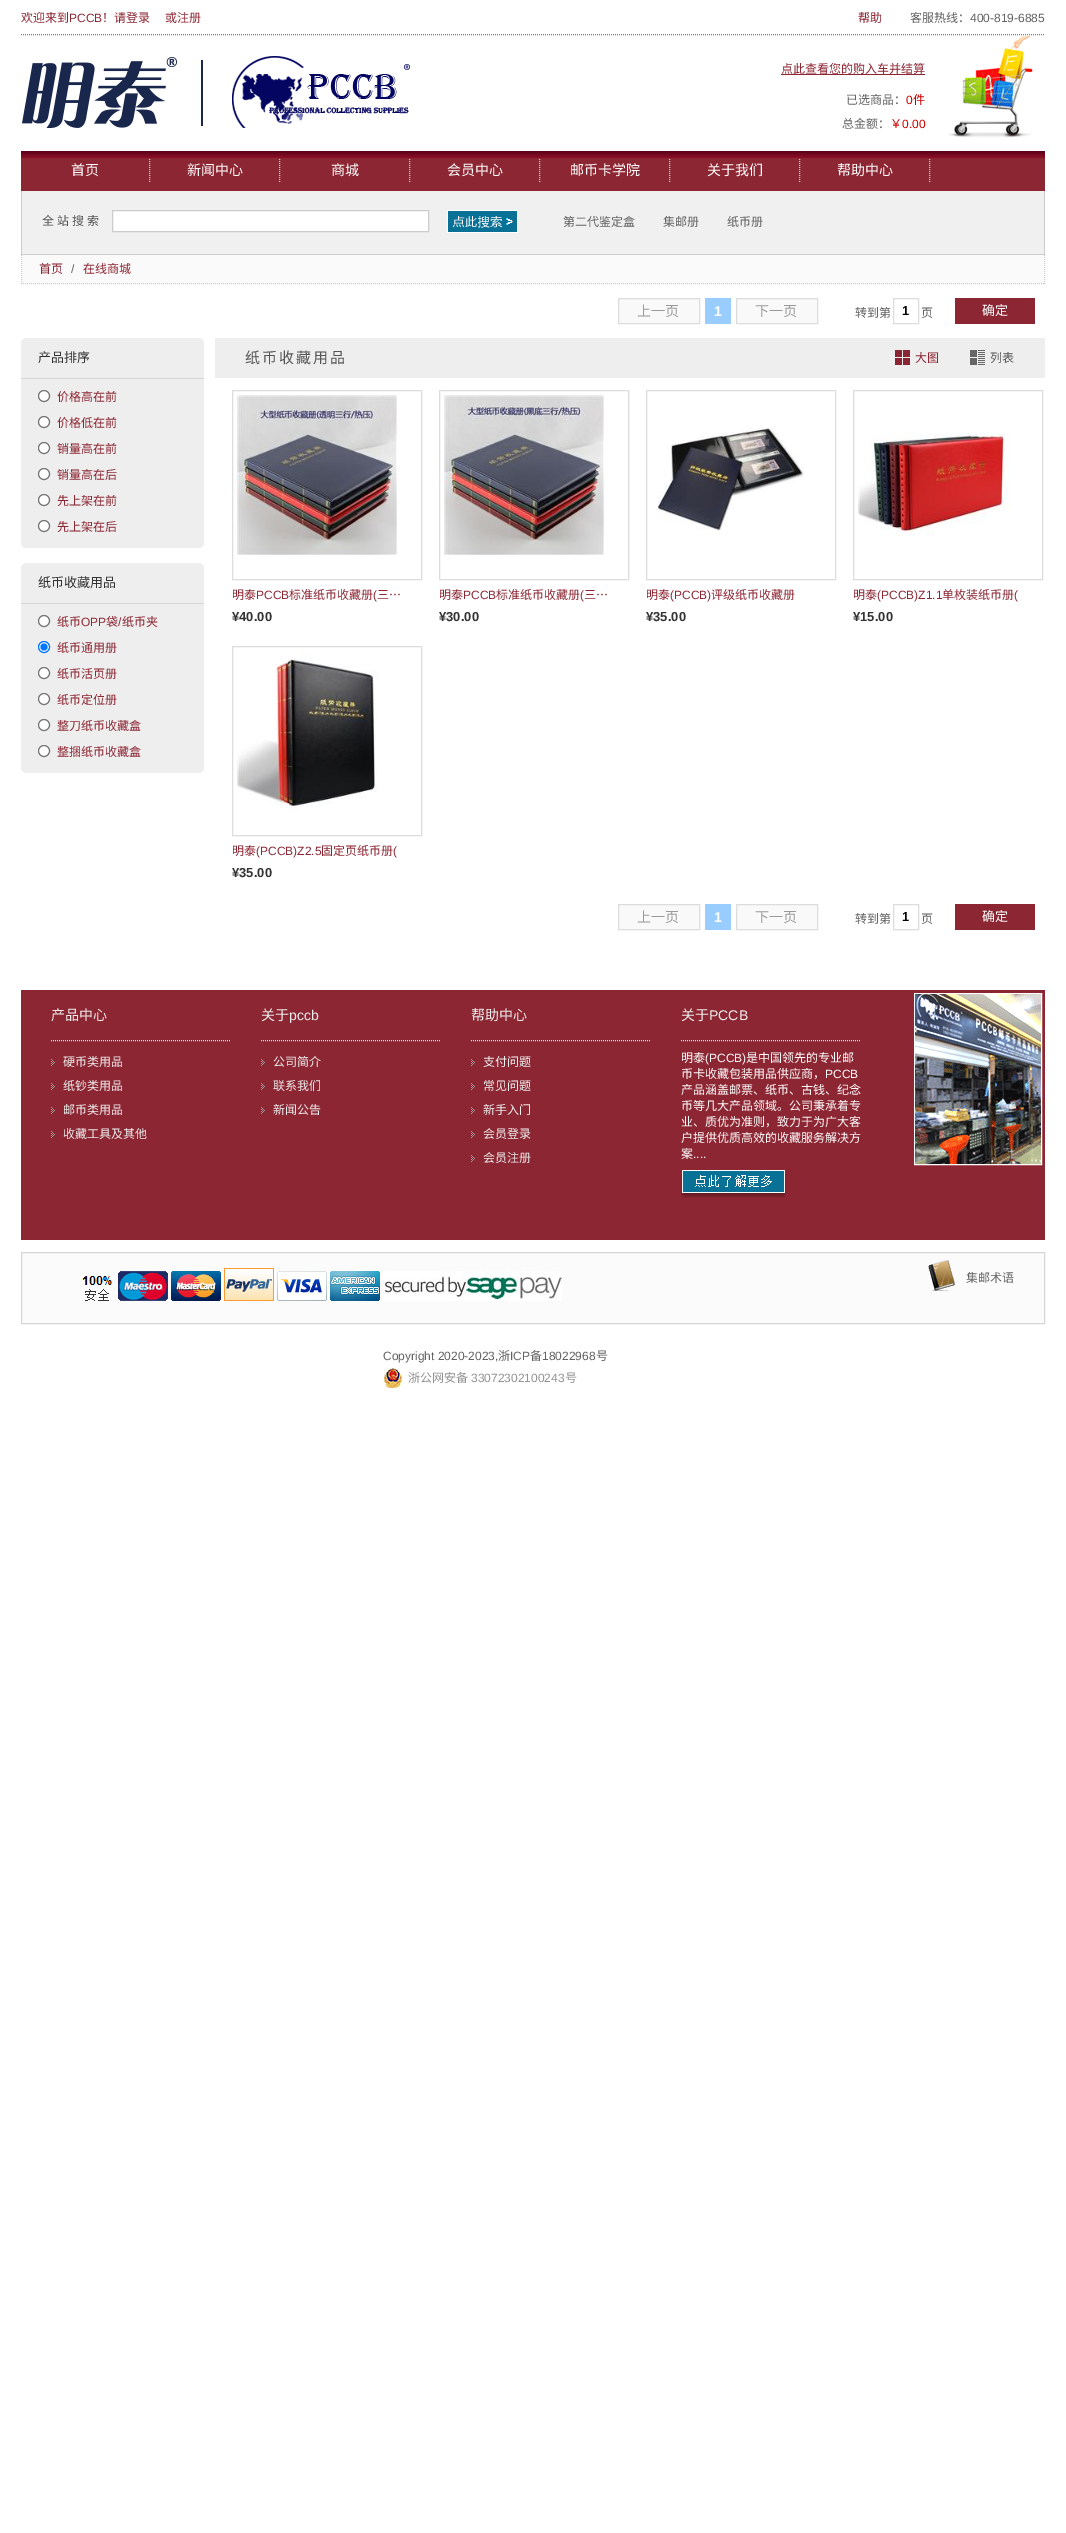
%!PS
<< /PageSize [1066 2533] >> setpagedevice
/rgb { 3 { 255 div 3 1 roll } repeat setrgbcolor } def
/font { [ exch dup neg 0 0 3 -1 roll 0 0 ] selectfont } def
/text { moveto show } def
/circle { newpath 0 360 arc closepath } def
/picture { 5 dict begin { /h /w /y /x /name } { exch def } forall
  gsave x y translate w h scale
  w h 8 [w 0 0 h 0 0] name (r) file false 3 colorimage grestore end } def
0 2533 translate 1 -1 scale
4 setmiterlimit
255 255 255 rgb
0 0 1066 2533 rectfill
129 129 129 rgb
[1 1] 0 setdash
21 34.5 moveto 1024 0 rlineto stroke
(img_01.rgb) 22 56 388 72 picture
(img_02.rgb) 948 36 85 102 picture
140 38 51 rgb
781 74 144 1 rectfill
21 158 1024 33 rectfill
(img_03.rgb) 21 151 1024 7 picture
221 221 221 rgb
149.5 159 moveto 0 24 rlineto stroke
279.5 159 moveto 0 24 rlineto stroke
409.5 159 moveto 0 24 rlineto stroke
539.5 159 moveto 0 24 rlineto stroke
669.5 159 moveto 0 24 rlineto stroke
799.5 159 moveto 0 24 rlineto stroke
929.5 159 moveto 0 24 rlineto stroke
240 240 240 rgb
22 191 1022 63 rectfill
204 204 204 rgb
1044 191 1 64 rectfill
21 254 1024 1 rectfill
21 191 1 64 rectfill
255 255 255 rgb
112.5 210.5 moveto 316 0 rlineto 0 21 rlineto -316 0 rlineto closepath gsave fill grestore
204 204 204 rgb
[] 0 setdash
stroke
(img_04.rgb) 447 210 71 23 picture
250 250 250 rgb
21 255 1024 29 rectfill
204 204 204 rgb
[1 1] 0 setdash
1044.5 255 moveto 0 29 rlineto stroke
21 283.5 moveto 1024 0 rlineto stroke
21.5 255 moveto 0 29 rlineto stroke
249 249 249 rgb
618.5 298.5 moveto 81 0 rlineto 0 25 rlineto -81 0 rlineto closepath gsave fill grestore
221 221 221 rgb
[] 0 setdash
stroke
153 204 255 rgb
705 298 26 26 rectfill
249 249 249 rgb
736.5 298.5 moveto 81 0 rlineto 0 25 rlineto -81 0 rlineto closepath gsave fill grestore
221 221 221 rgb
stroke
893.5 298.5 25 25 rectstroke
140 38 51 rgb
955 298 80 26 rectfill
238 238 238 rgb
21 341 183 37 rectfill
(img_05.rgb) 21 338 183 3 picture
214 214 214 rgb
21 378 183 1 rectfill
238 238 238 rgb
21 379 183 166 rectfill
(img_06.rgb) 21 545 183 3 picture
255 255 255 rgb
44 396 5.5 circle gsave fill grestore
118 118 118 rgb
stroke
255 255 255 rgb
44 422 5.5 circle gsave fill grestore
118 118 118 rgb
stroke
255 255 255 rgb
44 448 5.5 circle gsave fill grestore
118 118 118 rgb
stroke
255 255 255 rgb
44 474 5.5 circle gsave fill grestore
118 118 118 rgb
stroke
255 255 255 rgb
44 500 5.5 circle gsave fill grestore
118 118 118 rgb
stroke
255 255 255 rgb
44 526 5.5 circle gsave fill grestore
118 118 118 rgb
stroke
238 238 238 rgb
21 566 183 37 rectfill
(img_05.rgb) 21 563 183 3 picture
214 214 214 rgb
21 603 183 1 rectfill
238 238 238 rgb
21 604 183 166 rectfill
(img_06.rgb) 21 770 183 3 picture
255 255 255 rgb
44 621 5.5 circle gsave fill grestore
118 118 118 rgb
stroke
255 255 255 rgb
44 647 5.5 circle gsave fill grestore
0 117 255 rgb
stroke
44 647 3.5 circle fill
255 255 255 rgb
44 673 5.5 circle gsave fill grestore
118 118 118 rgb
stroke
255 255 255 rgb
44 699 5.5 circle gsave fill grestore
118 118 118 rgb
stroke
255 255 255 rgb
44 725 5.5 circle gsave fill grestore
118 118 118 rgb
stroke
255 255 255 rgb
44 751 5.5 circle gsave fill grestore
118 118 118 rgb
stroke
238 238 238 rgb
215 338 830 40 rectfill
(img_07.rgb) 895 350 15 15 picture
(img_08.rgb) 970 350 15 15 picture
221 221 221 rgb
232.5 390.5 189 189 rectstroke
(img_09.rgb) 237 395 160 160 picture
439.5 390.5 189 189 rectstroke
(img_10.rgb) 444 395 160 160 picture
646.5 390.5 189 189 rectstroke
(img_11.rgb) 657 427 147 108 picture
853.5 390.5 189 189 rectstroke
(img_12.rgb) 858 433 154 103 picture
232.5 646.5 189 189 rectstroke
(img_13.rgb) 237 651 141 160 picture
249 249 249 rgb
618.5 904.5 moveto 81 0 rlineto 0 25 rlineto -81 0 rlineto closepath gsave fill grestore
221 221 221 rgb
stroke
153 204 255 rgb
705 904 26 26 rectfill
249 249 249 rgb
736.5 904.5 moveto 81 0 rlineto 0 25 rlineto -81 0 rlineto closepath gsave fill grestore
221 221 221 rgb
stroke
893.5 904.5 25 25 rectstroke
140 38 51 rgb
955 904 80 26 rectfill
21 990 1024 250 rectfill
238 238 238 rgb
[1 1] 0 setdash
51 1040.5 moveto 180 0 rlineto stroke
(img_14.rgb) 51 1059 4 7 picture
(img_14.rgb) 51 1083 4 7 picture
(img_14.rgb) 51 1107 4 7 picture
(img_14.rgb) 51 1131 4 7 picture
261 1040.5 moveto 180 0 rlineto stroke
(img_14.rgb) 261 1059 4 7 picture
(img_14.rgb) 261 1083 4 7 picture
(img_14.rgb) 261 1107 4 7 picture
471 1040.5 moveto 180 0 rlineto stroke
(img_14.rgb) 471 1059 4 7 picture
(img_14.rgb) 471 1083 4 7 picture
(img_14.rgb) 471 1107 4 7 picture
(img_14.rgb) 471 1131 4 7 picture
(img_14.rgb) 471 1155 4 7 picture
681 1040.5 moveto 180 0 rlineto stroke
(img_15.rgb) 681 1170 105 28 picture
255 255 255 rgb
[] 0 setdash
914.5 993.5 127 171 rectstroke
(img_16.rgb) 915 994 126 170 picture
251 251 251 rgb
21.5 1252.5 moveto 1023 0 rlineto 0 71 rlineto -1023 0 rlineto closepath gsave fill grestore
214 214 214 rgb
stroke
(img_17.rgb) 82 1268 480 33 picture
(img_18.rgb) 927 1260 28 31 picture
(img_19.rgb) 384 1368 18 20 picture
/NotoSansCJKSC-Regular 12 font
140 38 51 rgb
(欢迎来到) 21 22 text
/LiberationSans-Regular 12 font
(PCCB) 69 22 text
/NotoSansCJKSC-Regular 12 font
(！请登录) 102 22 text
(或注册) 165 22 text
(帮助) 858 22 text
98 98 98 rgb
(客服热线：) 910 22 text
/LiberationSans-Regular 12 font
(400-819-6885) 970 22 text
/NotoSansCJKSC-Regular 12 font
140 38 51 rgb
(点此查看您的购入车并结算) 781 73 text
98 98 98 rgb
(已选商品：) 846 104 text
/LiberationSans-Regular 12 font
204 0 0 rgb
(0) 906 104 text
/NotoSansCJKSC-Regular 12 font
(件) 913 104 text
98 98 98 rgb
(总金额：) 842 128 text
204 0 0 rgb
(￥) 890 128 text
/LiberationSans-Regular 12 font
(0.00) 902 128 text
/NotoSansCJKSC-Regular 14 font
255 255 255 rgb
(首页) 71 175 text
(新闻中心) 187 175 text
(商城) 331 175 text
(会员中心) 447 175 text
(邮币卡学院) 570 175 text
(关于我们) 707 175 text
(帮助中心) 837 175 text
/NotoSansCJKSC-Regular 12 font
85 85 85 rgb
42 225 moveto 3 0 (全站搜索) ashow
98 98 98 rgb
(第二代鉴定盒) 563 226 text
(集邮册) 663 226 text
(纸币册) 727 226 text
140 38 51 rgb
(首页) 39 273 text
/LiberationSans-Regular 12 font
98 98 98 rgb
(/) 71 273 text
/NotoSansCJKSC-Regular 12 font
140 38 51 rgb
(在线商城) 83 273 text
/NotoSansCJKSC-Regular 14 font
153 153 153 rgb
(上一页) 637 316 text
/LiberationSans-Bold 14 font
255 255 255 rgb
(1) 714 316 text
/NotoSansCJKSC-Regular 14 font
153 153 153 rgb
(下一页) 755 316 text
/NotoSansCJKSC-Regular 12 font
98 98 98 rgb
(转到第) 855 317 text
/LiberationSans-Bold 13 font
0 0 0 rgb
(1) 902 315 text
/NotoSansCJKSC-Regular 12 font
98 98 98 rgb
(页) 921 317 text
/NotoSansCJKSC-Regular 13 font
255 255 255 rgb
(确定) 982 315 text
51 51 51 rgb
(产品排序) 38 362 text
/NotoSansCJKSC-Regular 12 font
140 38 51 rgb
(价格高在前) 57 401 text
(价格低在前) 57 427 text
(销量高在前) 57 453 text
(销量高在后) 57 479 text
(先上架在前) 57 505 text
(先上架在后) 57 531 text
/NotoSansCJKSC-Regular 13 font
51 51 51 rgb
(纸币收藏用品) 38 587 text
/NotoSansCJKSC-Regular 12 font
140 38 51 rgb
(纸币) 57 626 text
/LiberationSans-Regular 12 font
(OPP) 81 626 text
/NotoSansCJKSC-Regular 12 font
(袋) 106 626 text
/LiberationSans-Regular 12 font
(/) 118 626 text
/NotoSansCJKSC-Regular 12 font
(纸币夹) 122 626 text
(纸币通用册) 57 652 text
(纸币活页册) 57 678 text
(纸币定位册) 57 704 text
(整刀纸币收藏盒) 57 730 text
(整捆纸币收藏盒) 57 756 text
/NotoSansCJKSC-Regular 15 font
85 85 85 rgb
245 363 moveto 2 0 (纸币收藏用品) ashow
/NotoSansCJKSC-Regular 12 font
140 38 51 rgb
(大图) 915 362 text
85 85 85 rgb
(列表) 990 362 text
140 38 51 rgb
(明泰) 232 599 text
/LiberationSans-Regular 12 font
(PCCB) 256 599 text
/NotoSansCJKSC-Regular 12 font
(标准纸币收藏册) 289 599 text
/LiberationSans-Regular 12 font
(\() 373 599 text
/NotoSansCJKSC-Regular 12 font
(三…) 377 599 text
/LiberationSans-Bold 13 font
51 51 51 rgb
(¥40.00) 232 621 text
/NotoSansCJKSC-Regular 12 font
140 38 51 rgb
(明泰) 439 599 text
/LiberationSans-Regular 12 font
(PCCB) 463 599 text
/NotoSansCJKSC-Regular 12 font
(标准纸币收藏册) 496 599 text
/LiberationSans-Regular 12 font
(\() 580 599 text
/NotoSansCJKSC-Regular 12 font
(三…) 584 599 text
/LiberationSans-Bold 13 font
51 51 51 rgb
(¥30.00) 439 621 text
/NotoSansCJKSC-Regular 12 font
140 38 51 rgb
(明泰) 646 599 text
/LiberationSans-Regular 12 font
(\(PCCB\)) 670 599 text
/NotoSansCJKSC-Regular 12 font
(评级纸币收藏册) 711 599 text
/LiberationSans-Bold 13 font
51 51 51 rgb
(¥35.00) 646 621 text
/NotoSansCJKSC-Regular 12 font
140 38 51 rgb
(明泰) 853 599 text
/LiberationSans-Regular 12 font
(\(PCCB\)Z1.1) 877 599 text
/NotoSansCJKSC-Regular 12 font
(单枚装纸币册) 942 599 text
/LiberationSans-Regular 12 font
(\() 1014 599 text
/LiberationSans-Bold 13 font
51 51 51 rgb
(¥15.00) 853 621 text
/NotoSansCJKSC-Regular 12 font
140 38 51 rgb
(明泰) 232 855 text
/LiberationSans-Regular 12 font
(\(PCCB\)Z2.5) 256 855 text
/NotoSansCJKSC-Regular 12 font
(固定页纸币册) 321 855 text
/LiberationSans-Regular 12 font
(\() 393 855 text
/LiberationSans-Bold 13 font
51 51 51 rgb
(¥35.00) 232 877 text
/NotoSansCJKSC-Regular 14 font
153 153 153 rgb
(上一页) 637 922 text
/LiberationSans-Bold 14 font
255 255 255 rgb
(1) 714 922 text
/NotoSansCJKSC-Regular 14 font
153 153 153 rgb
(下一页) 755 922 text
/NotoSansCJKSC-Regular 12 font
98 98 98 rgb
(转到第) 855 923 text
/LiberationSans-Bold 13 font
0 0 0 rgb
(1) 902 921 text
/NotoSansCJKSC-Regular 12 font
98 98 98 rgb
(页) 921 923 text
/NotoSansCJKSC-Regular 13 font
255 255 255 rgb
(确定) 982 921 text
/NotoSansCJKSC-Regular 14 font
238 238 238 rgb
(产品中心) 51 1020 text
/NotoSansCJKSC-Regular 12 font
(硬币类用品) 63 1066 text
(纸钞类用品) 63 1090 text
(邮币类用品) 63 1114 text
(收藏工具及其他) 63 1138 text
/NotoSansCJKSC-Regular 14 font
(关于) 261 1020 text
/LiberationSans-Regular 14 font
(pccb) 289 1020 text
/NotoSansCJKSC-Regular 12 font
(公司简介) 273 1066 text
(联系我们) 273 1090 text
(新闻公告) 273 1114 text
/NotoSansCJKSC-Regular 14 font
(帮助中心) 471 1020 text
/NotoSansCJKSC-Regular 12 font
(支付问题) 483 1066 text
(常见问题) 483 1090 text
(新手入门) 483 1114 text
(会员登录) 483 1138 text
(会员注册) 483 1162 text
/NotoSansCJKSC-Regular 14 font
(关于) 681 1020 text
/LiberationSans-Regular 14 font
(PCCB) 709 1020 text
/NotoSansCJKSC-Regular 12 font
255 255 255 rgb
(明泰) 681 1062 text
/LiberationSans-Regular 12 font
(\(PCCB\)) 705 1062 text
/NotoSansCJKSC-Regular 12 font
(是中国领先的专业邮) 746 1062 text
(币卡收藏包装用品供应商，) 681 1078 text
/LiberationSans-Regular 12 font
(PCCB) 825 1078 text
/NotoSansCJKSC-Regular 12 font
(产品涵盖邮票、纸币、古钱、纪念) 681 1094 text
(币等几大产品领域。公司秉承着专) 681 1110 text
(业、质优为准则，致力于为广大客) 681 1126 text
(户提供优质高效的收藏服务解决方) 681 1142 text
(案) 681 1158 text
/LiberationSans-Regular 12 font
(....) 693 1158 text
/NotoSansCJKSC-Regular 12 font
98 98 98 rgb
(集邮术语) 966 1282 text
/LiberationSans-Regular 12 font
(Copyright 2020-2023,) 383 1360 text
/NotoSansCJKSC-Regular 12 font
(浙) 498 1360 text
/LiberationSans-Regular 12 font
(ICP) 510 1360 text
/NotoSansCJKSC-Regular 12 font
(备) 530 1360 text
/LiberationSans-Regular 12 font
(18022968) 542 1360 text
/NotoSansCJKSC-Regular 12 font
(号) 596 1360 text
147 147 147 rgb
(浙公网安备) 408 1382 text
/LiberationSans-Regular 12 font
(33072302100243) 471 1382 text
/NotoSansCJKSC-Regular 12 font
(号) 565 1382 text
showpage
